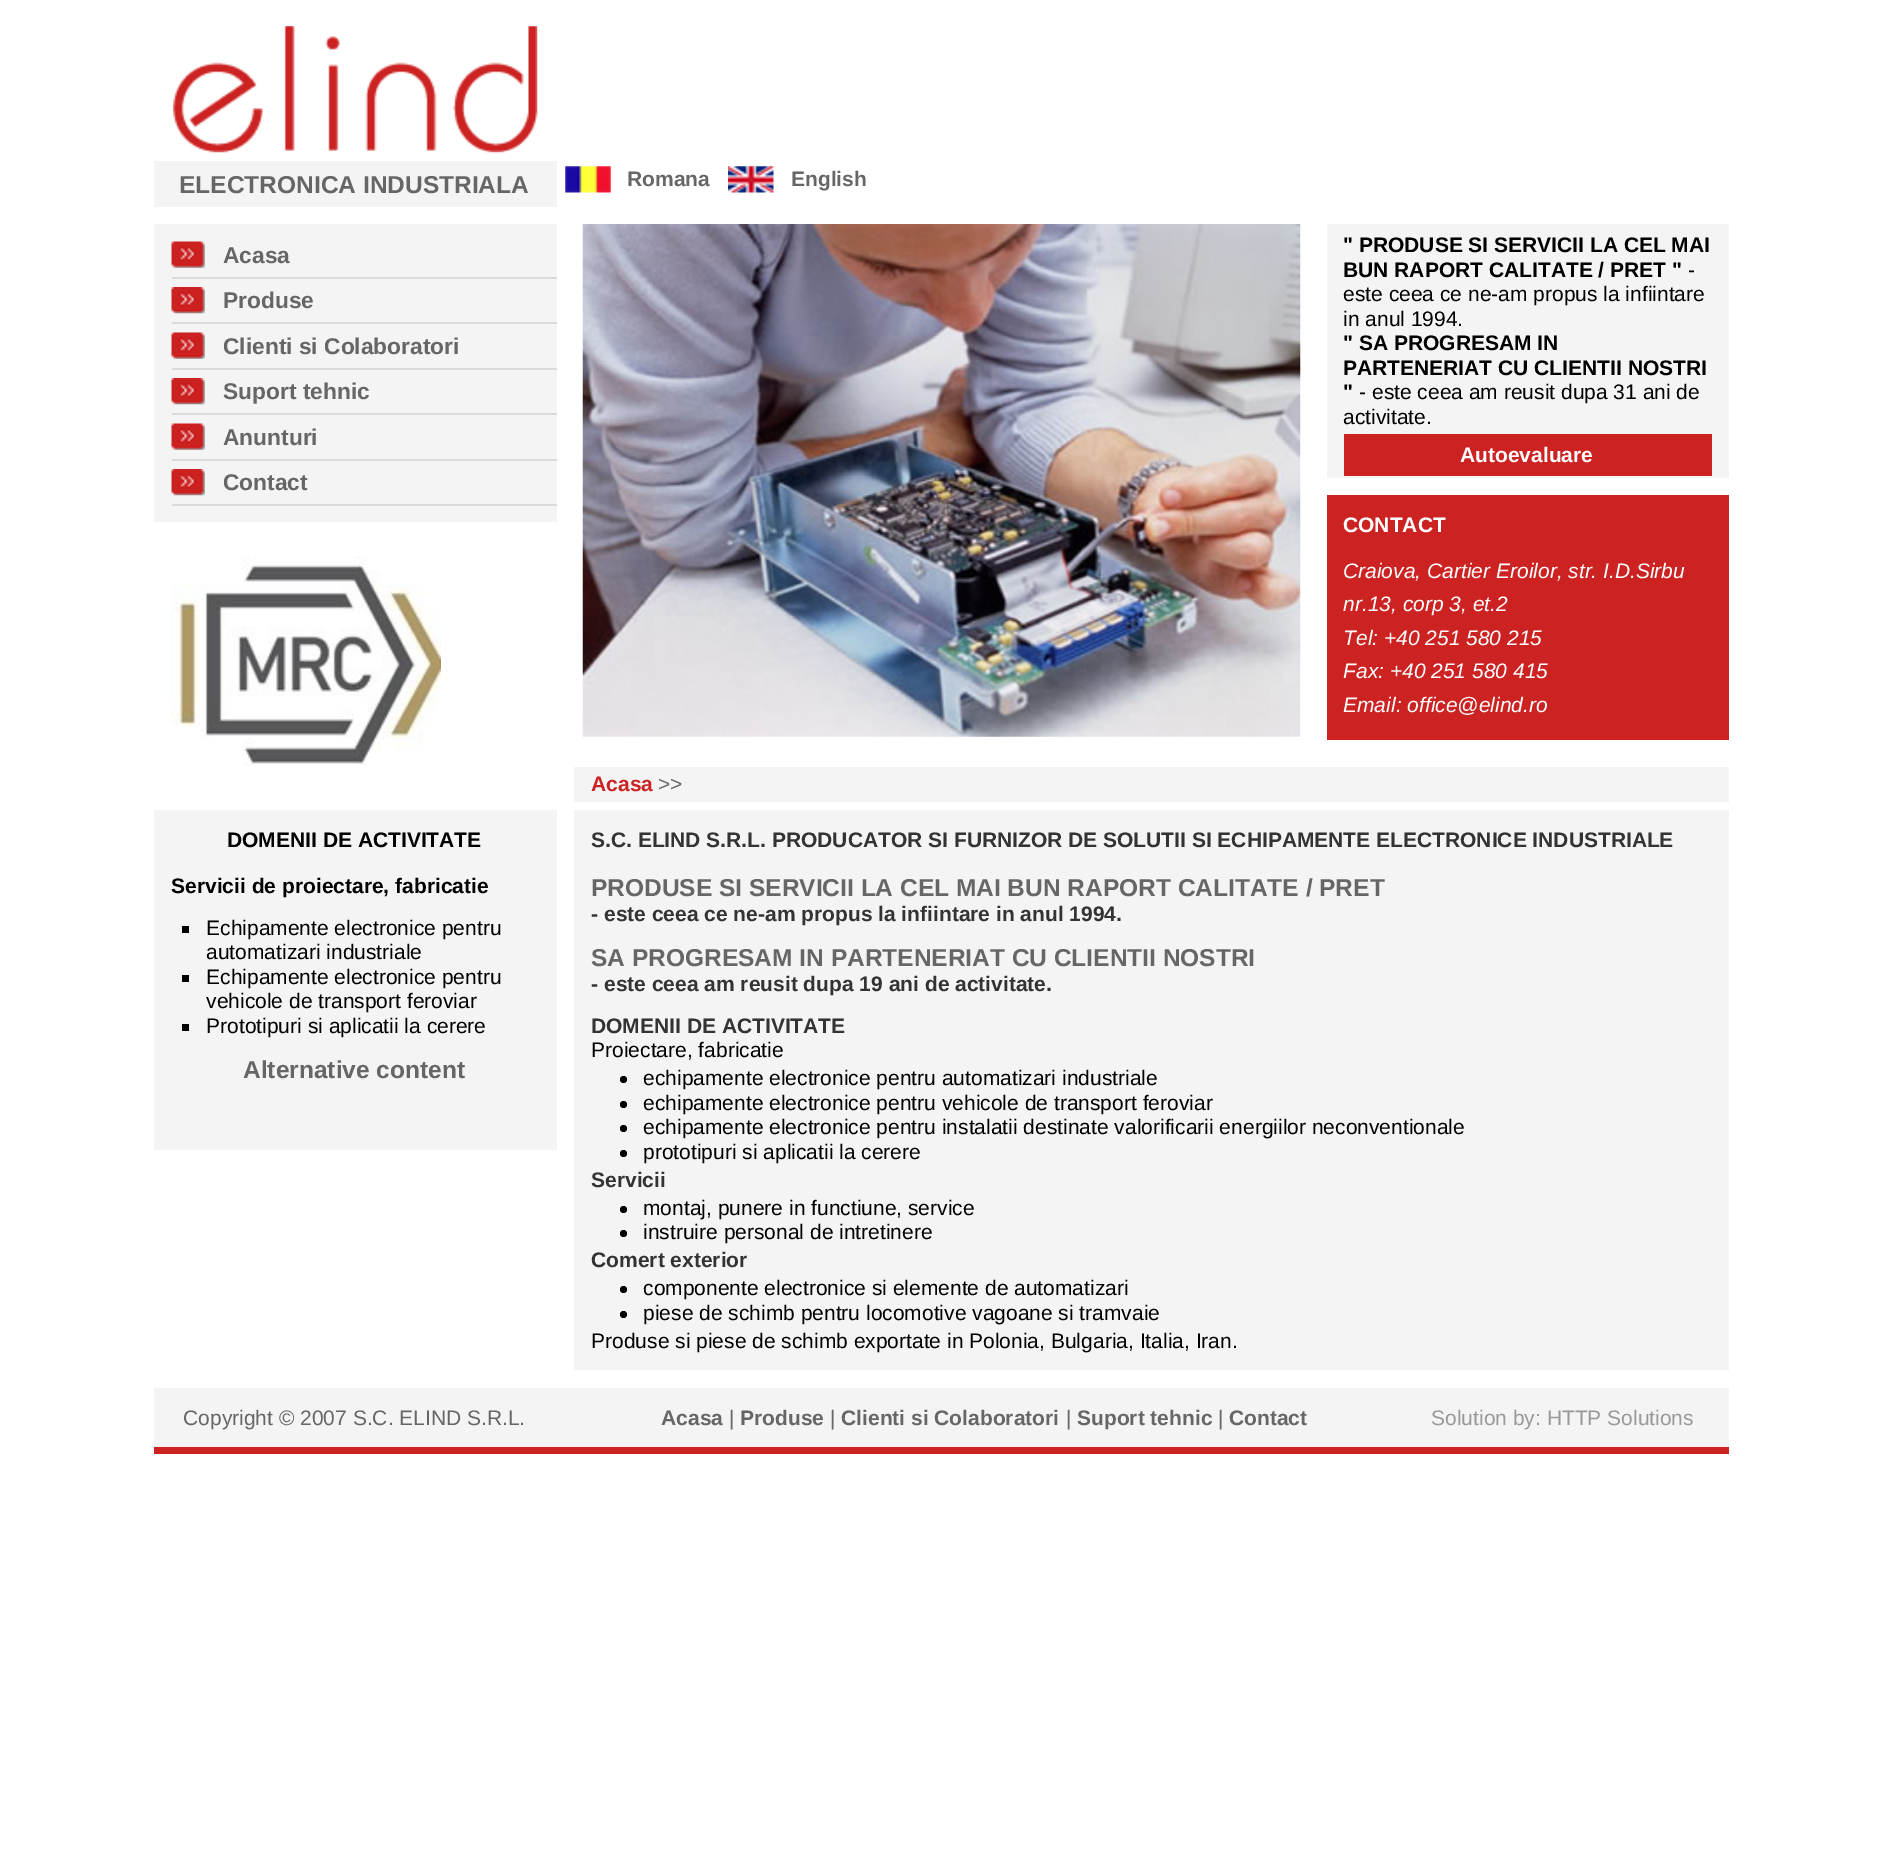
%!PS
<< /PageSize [1880 1870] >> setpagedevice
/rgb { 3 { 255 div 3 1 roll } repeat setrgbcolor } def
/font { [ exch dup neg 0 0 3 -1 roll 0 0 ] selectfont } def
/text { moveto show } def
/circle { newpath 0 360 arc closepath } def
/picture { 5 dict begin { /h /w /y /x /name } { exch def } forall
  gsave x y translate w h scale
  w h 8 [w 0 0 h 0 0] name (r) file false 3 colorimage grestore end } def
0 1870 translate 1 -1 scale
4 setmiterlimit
255 255 255 rgb
0 0 1880 1870 rectfill
(img_01.rgb) 173 26 365 127 picture
244 244 244 rgb
154 161 403 46 rectfill
(img_02.rgb) 565 166 46 27 picture
(img_03.rgb) 728 166 46 27 picture
154 224 403 298 rectfill
(img_04.rgb) 171 241 34 27 picture
219 219 219 rgb
172 277 385 2 rectfill
(img_05.rgb) 171 287 34 27 picture
172 322 385 2 rectfill
(img_04.rgb) 171 332 34 27 picture
172 368 385 2 rectfill
(img_05.rgb) 171 378 34 27 picture
172 413 385 2 rectfill
(img_04.rgb) 171 423 34 27 picture
172 459 385 2 rectfill
(img_05.rgb) 171 469 34 27 picture
172 504 385 2 rectfill
(img_06.rgb) 171 556 270 210 picture
(img_07.rgb) 582 224 719 513 picture
244 244 244 rgb
1327 224 402 254 rectfill
204 34 34 rgb
1344 434 368 42 rectfill
1327 495 402 245 rectfill
244 244 244 rgb
574 767 1155 35 rectfill
154 810 403 340 rectfill
0 0 0 rgb
182 926 7 7 rectfill
182 975 7 7 rectfill
182 1024 7 7 rectfill
244 244 244 rgb
574 810 1155 560 rectfill
0 0 0 rgb
623.5 1079.5 3.5 circle fill
623.5 1104.5 3.5 circle fill
623.5 1128.5 3.5 circle fill
623.5 1153.5 3.5 circle fill
623.5 1209.5 3.5 circle fill
623.5 1233.5 3.5 circle fill
623.5 1289.5 3.5 circle fill
623.5 1314.5 3.5 circle fill
244 244 244 rgb
154 1388 1575 59 rectfill
204 34 34 rgb
154 1447 1575 7 rectfill
/LiberationSans-Bold 24.5 font
102 102 102 rgb
(ELECTRONICA INDUSTRIALA) 179 193 text
/LiberationSans-Bold 21 font
(Romana) 627 186 text
(English) 791 186 text
/LiberationSans-Bold 22.75 font
(Acasa) 223 263 text
(Produse) 223 308 text
(Clienti si Colaboratori) 223 354 text
(Suport tehnic) 223 399 text
(Anunturi) 223 445 text
(Contact) 223 490 text
/LiberationSans-Bold 21 font
0 0 0 rgb
(" PRODUSE SI SERVICII LA CEL MAI) 1343 252 text
(BUN RAPORT CALITATE / PRET ") 1343 277 text
/LiberationSans-Regular 21 font
(-) 1688 277 text
(este ceea ce ne-am propus la infiintare) 1343 301 text
(in anul 1994.) 1343 326 text
/LiberationSans-Bold 21 font
(" SA PROGRESAM IN) 1343 350 text
(PARTENERIAT CU CLIENTII NOSTRI) 1343 375 text
(") 1343 399 text
/LiberationSans-Regular 21 font
(- este ceea am reusit dupa 31 ani de) 1359 399 text
(activitate.) 1343 424 text
/LiberationSans-Bold 21 font
255 255 255 rgb
(Autoevaluare) 1460 462 text
(CONTACT) 1343 532 text
/LiberationSans-Italic 21 font
(Craiova, Cartier Eroilor, str. I.D.Sirbu) 1343 578 text
(nr.13, corp 3, et.2) 1343 611 text
(Tel: +40 251 580 215) 1343 645 text
(Fax: +40 251 580 415) 1343 678 text
(Email: office@elind.ro) 1343 712 text
/LiberationSans-Bold 21 font
204 34 34 rgb
(Acasa) 591 791 text
/LiberationSans-Regular 21 font
102 102 102 rgb
(>>) 658 791 text
/LiberationSans-Bold 21 font
0 0 0 rgb
(DOMENII DE ACTIVITATE) 227 847 text
(Servicii de proiectare, fabricatie) 171 893 text
/LiberationSans-Regular 21 font
(Echipamente electronice pentru) 206 935 text
(automatizari industriale) 206 959 text
(Echipamente electronice pentru) 206 984 text
(vehicole de transport feroviar) 206 1008 text
(Prototipuri si aplicatii la cerere) 206 1033 text
/LiberationSans-Bold 24.5 font
102 102 102 rgb
(Alternative content) 243 1078 text
/LiberationSans-Bold 21 font
51 51 51 rgb
(S.C. ELIND S.R.L. PRODUCATOR SI FURNIZOR DE SOLUTII SI ECHIPAMENTE ELECTRONICE INDUSTRIALE) 591 847 text
/LiberationSans-Bold 24.5 font
102 102 102 rgb
(PRODUSE SI SERVICII LA CEL MAI BUN RAPORT CALITATE / PRET) 591 896 text
/LiberationSans-Bold 21 font
51 51 51 rgb
(- este ceea ce ne-am propus la infiintare in anul 1994.) 591 921 text
/LiberationSans-Bold 24.5 font
102 102 102 rgb
(SA PROGRESAM IN PARTENERIAT CU CLIENTII NOSTRI) 591 966 text
/LiberationSans-Bold 21 font
51 51 51 rgb
(- este ceea am reusit dupa 19 ani de activitate.) 591 991 text
(DOMENII DE ACTIVITATE) 591 1033 text
/LiberationSans-Regular 21 font
0 0 0 rgb
(Proiectare, fabricatie) 591 1057 text
(echipamente electronice pentru automatizari industriale) 643 1085 text
(echipamente electronice pentru vehicole de transport feroviar) 643 1110 text
(echipamente electronice pentru instalatii destinate valorificarii energiilor neconventionale) 643 1134 text
(prototipuri si aplicatii la cerere) 643 1159 text
/LiberationSans-Bold 21 font
51 51 51 rgb
(Servicii) 591 1187 text
/LiberationSans-Regular 21 font
0 0 0 rgb
(montaj, punere in functiune, service) 643 1215 text
(instruire personal de intretinere) 643 1239 text
/LiberationSans-Bold 21 font
51 51 51 rgb
(Comert exterior) 591 1267 text
/LiberationSans-Regular 21 font
0 0 0 rgb
(componente electronice si elemente de automatizari) 643 1295 text
(piese de schimb pentru locomotive vagoane si tramvaie) 643 1320 text
(Produse si piese de schimb exportate in Polonia, Bulgaria, Italia, Iran.) 591 1348 text
102 102 102 rgb
(Copyright © 2007 S.C. ELIND S.R.L.) 183 1425 text
/LiberationSans-Bold 21 font
(Acasa) 661 1425 text
/LiberationSans-Regular 21 font
(|) 729 1425 text
/LiberationSans-Bold 21 font
(Produse) 740 1425 text
/LiberationSans-Regular 21 font
(|) 830 1425 text
/LiberationSans-Bold 21 font
(Clienti si Colaboratori) 841 1425 text
/LiberationSans-Regular 21 font
(|) 1066 1425 text
/LiberationSans-Bold 21 font
(Suport tehnic) 1077 1425 text
/LiberationSans-Regular 21 font
(|) 1218 1425 text
/LiberationSans-Bold 21 font
(Contact) 1229 1425 text
/LiberationSans-Regular 21 font
153 153 153 rgb
(Solution by: HTTP Solutions) 1431 1425 text
showpage
